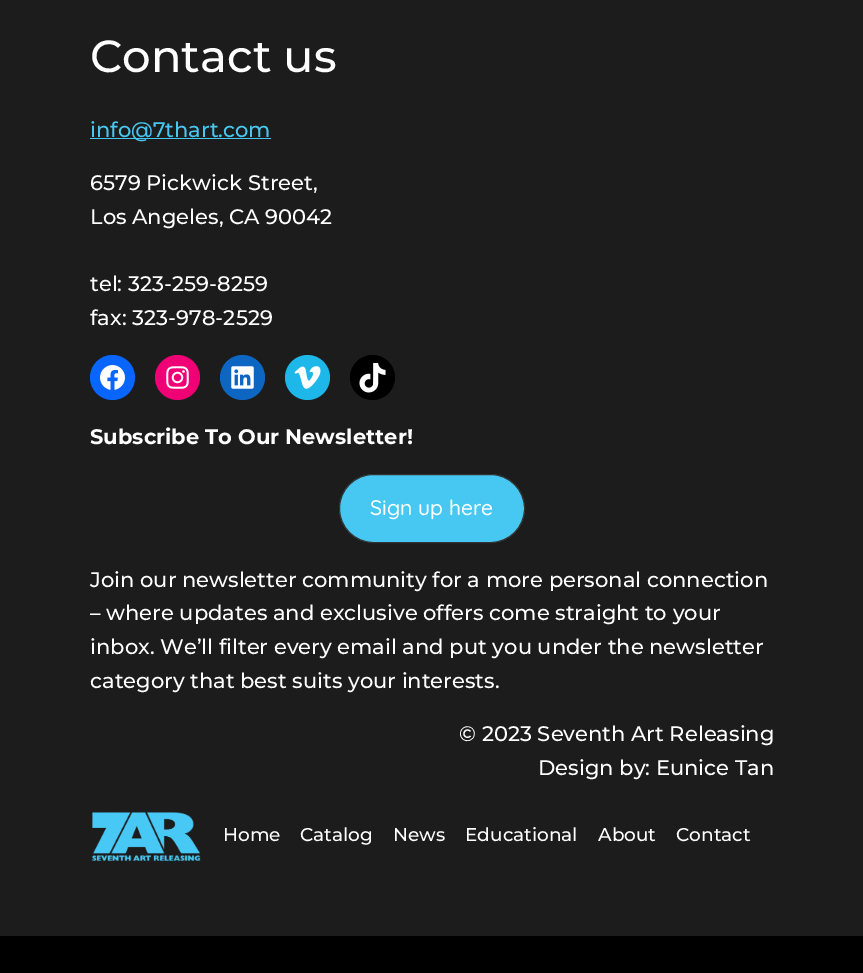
%!PS
<< /PageSize [863 973] >> setpagedevice
/rgb { 3 { 255 div 3 1 roll } repeat setrgbcolor } def
/font { [ exch dup neg 0 0 3 -1 roll 0 0 ] selectfont } def
/text { moveto show } def
/circle { newpath 0 360 arc closepath } def
/roundrect { 5 dict begin { /r /h /w /y /x } { exch def } forall
  x r add y moveto x w add y 2 copy h add r arct x w add y h add x 1 index r arct
  x y h add x y r arct x y 2 copy exch w add exch r arct closepath end } def
/picture { 5 dict begin { /h /w /y /x /name } { exch def } forall
  gsave x y translate w h scale
  w h 8 [w 0 0 h 0 0] name (r) file false 3 colorimage grestore end } def
0 973 translate 1 -1 scale
4 setmiterlimit
0 0 0 rgb
0 0 863 973 rectfill
28 28 28 rgb
0 0 863 936 rectfill
71 200 243 rgb
90 138 181 1 rectfill
8 102 255 rgb
112.5 377.5 22.5 circle fill
(img_01.rgb) 100 365 25 25 picture
240 0 117 rgb
177.5 377.5 22.5 circle fill
(img_02.rgb) 166 366 23 23 picture
13 102 194 rgb
242.5 377.5 22.5 circle fill
(img_03.rgb) 231 366 23 23 picture
30 183 234 rgb
307.5 377.5 22.5 circle fill
(img_04.rgb) 294 366 27 23 picture
0 0 0 rgb
372.5 377.5 22.5 circle fill
(img_05.rgb) 359 363 27 30 picture
71 200 243 rgb
339.5 474.5 185 68 34 roundrect gsave fill grestore
51 51 51 rgb
stroke
(img_06.rgb) 92 812 109 49 picture
/Montserrat-Medium 45 font
255 255 255 rgb
(Contact us) 90 72 text
/Montserrat-Medium 21.05 font
71 200 243 rgb
(info@7thart.com) 90 137 text
255 255 255 rgb
(6579 Pickwick Street,) 90 190 text
(Los Angeles, CA 90042) 90 224 text
(tel: 323-259-8259) 90 291 text
(fax: 323-978-2529) 90 325 text
/Montserrat-Bold 21.05 font
(Subscribe To Our Newsletter!) 90 444 text
/Quicksand-Medium 21.05 font
(Sign up here) 370 515 text
/Montserrat-Medium 21.05 font
(Join our newsletter community for a more personal connection) 90 587 text
(– where updates and exclusive offers come straight to your) 90 620 text
(inbox. We’ll filter every email and put you under the newsletter) 90 654 text
(category that best suits your interests.) 90 688 text
(© 2023 Seventh Art Releasing) 459 741 text
(Design by: Eunice Tan) 538 775 text
/Montserrat-Medium 18.5 font
(Home) 223 841 text
(Catalog) 300 841 text
(News) 393 841 text
(Educational) 465 841 text
(About) 598 841 text
(Contact) 676 841 text
showpage
